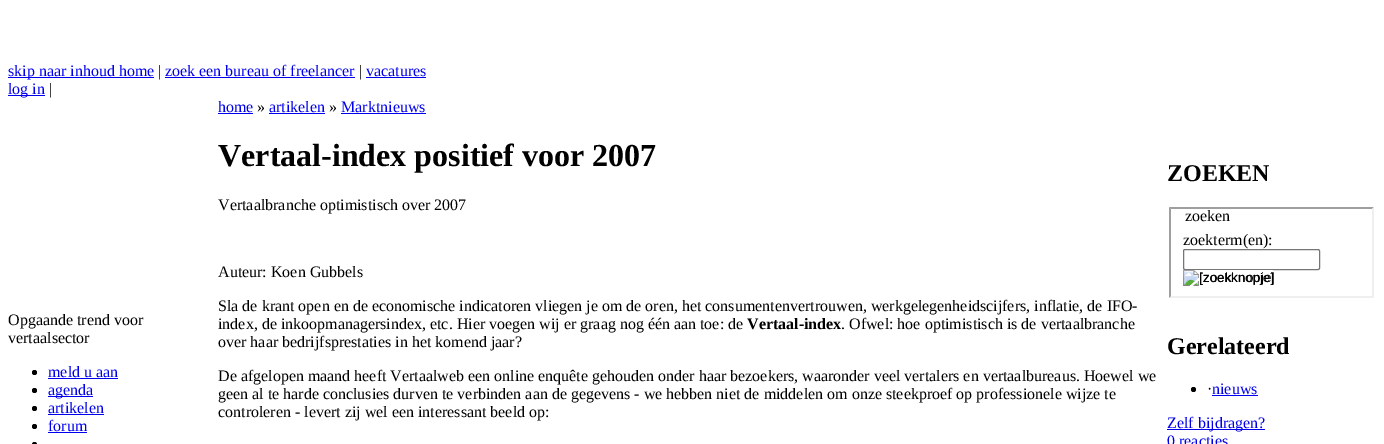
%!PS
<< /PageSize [1384 444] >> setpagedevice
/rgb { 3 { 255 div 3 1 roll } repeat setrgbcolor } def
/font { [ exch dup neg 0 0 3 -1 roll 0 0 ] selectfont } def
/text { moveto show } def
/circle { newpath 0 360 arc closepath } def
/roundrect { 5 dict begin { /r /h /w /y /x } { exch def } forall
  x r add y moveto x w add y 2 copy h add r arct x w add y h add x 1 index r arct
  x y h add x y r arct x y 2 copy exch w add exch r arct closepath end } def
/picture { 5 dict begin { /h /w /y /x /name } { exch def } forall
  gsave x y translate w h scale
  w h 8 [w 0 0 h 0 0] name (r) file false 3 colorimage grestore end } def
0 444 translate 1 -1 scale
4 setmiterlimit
255 255 255 rgb
0 0 1384 444 rectfill
0 0 238 rgb
8 77 146 1 rectfill
165 77 190 1 rectfill
366 77 60 1 rectfill
8 95 37 1 rectfill
0 0 0 rgb
34.5 372.5 2.5 circle fill
0 0 238 rgb
48 378 70 1 rectfill
0 0 0 rgb
34.5 390.5 2.5 circle fill
0 0 238 rgb
48 396 45 1 rectfill
0 0 0 rgb
34.5 408.5 2.5 circle fill
0 0 238 rgb
48 414 56 1 rectfill
0 0 0 rgb
34.5 426.5 2.5 circle fill
0 0 238 rgb
48 432 39 1 rectfill
0 0 0 rgb
34.5 444.5 2.5 circle fill
0 0 238 rgb
218 113 35 1 rectfill
269 113 56 1 rectfill
341 113 85 1 rectfill
159 159 159 rgb
1169 207 moveto 205 0 rlineto -2 2 rlineto -201 0 rlineto closepath fill
239 239 239 rgb
1374 207 moveto 0 91 rlineto -2 -2 rlineto 0 -87 rlineto closepath fill
1374 298 moveto -205 0 rlineto 2 -2 rlineto 201 0 rlineto closepath fill
159 159 159 rgb
1169 298 moveto 0 -91 rlineto 2 2 rlineto 0 87 rlineto closepath fill
118 118 118 rgb
1183.5 249.5 136 20 1.5 roundrect stroke
(img_01.rgb) 1183 270 90 16 picture
0 0 0 rgb
1193.5 389.5 2.5 circle fill
0 0 238 rgb
1212 395 46 1 rectfill
1167 429 98 1 rectfill
/LiberationSerif-Regular 16 font
(skip naar inhoud home) 8 76 text
0 0 0 rgb
(|) 158 76 text
0 0 238 rgb
(zoek een bureau of freelancer) 165 76 text
0 0 0 rgb
(|) 359 76 text
0 0 238 rgb
(vacatures) 366 76 text
(log in) 8 94 text
0 0 0 rgb
(|) 49 94 text
(Opgaande trend voor) 8 325 text
(vertaalsector) 8 343 text
0 0 238 rgb
(meld u aan) 48 377 text
(agenda) 48 395 text
(artikelen) 48 413 text
(forum) 48 431 text
(home) 218 112 text
0 0 0 rgb
(») 257 112 text
0 0 238 rgb
(artikelen) 269 112 text
0 0 0 rgb
(») 329 112 text
0 0 238 rgb
(Marktnieuws) 341 112 text
/LiberationSerif-Bold 32 font
0 0 0 rgb
(Vertaal-index positief voor 2007) 218 166 text
/LiberationSerif-Regular 16 font
(Vertaalbranche optimistisch over 2007) 218 210 text
(Auteur: Koen Gubbels) 218 277 text
(Sla de krant open en de economische indicatoren vliegen je om de oren, het consumentenvertrouwen, werkgelegenheidscijfers, inflatie, de IFO-) 218 311 text
(index, de inkoopmanagersindex, etc. Hier voegen wij er graag nog één aan toe: de) 218 329 text
/LiberationSerif-Bold 16 font
(Vertaal-index) 747 329 text
/LiberationSerif-Regular 16 font
(. Ofwel: hoe optimistisch is de vertaalbranche) 841 329 text
(over haar bedrijfsprestaties in het komend jaar?) 218 347 text
(De afgelopen maand heeft Vertaalweb een online enquête gehouden onder haar bezoekers, waaronder veel vertalers en vertaalbureaus. Hoewel we) 218 381 text
(geen al te harde conclusies durven te verbinden aan de gegevens - we hebben niet de middelen om onze steekproef op professionele wijze te) 218 399 text
(controleren - levert zij wel een interessant beeld op:) 218 417 text
/LiberationSerif-Bold 24 font
(ZOEKEN) 1167 181 text
/LiberationSerif-Regular 16 font
(zoeken) 1185 221 text
(zoekterm\(en\):) 1183 245 text
/LiberationSans-Regular 13.5 font
([zoekknopje]) 1199 282 text
/LiberationSerif-Bold 24 font
(Gerelateerd) 1167 354 text
/LiberationSerif-Regular 16 font
(·) 1207 394 text
0 0 238 rgb
(nieuws) 1212 394 text
(Zelf bijdragen?) 1167 428 text
(0 reacties) 1167 446 text
showpage
